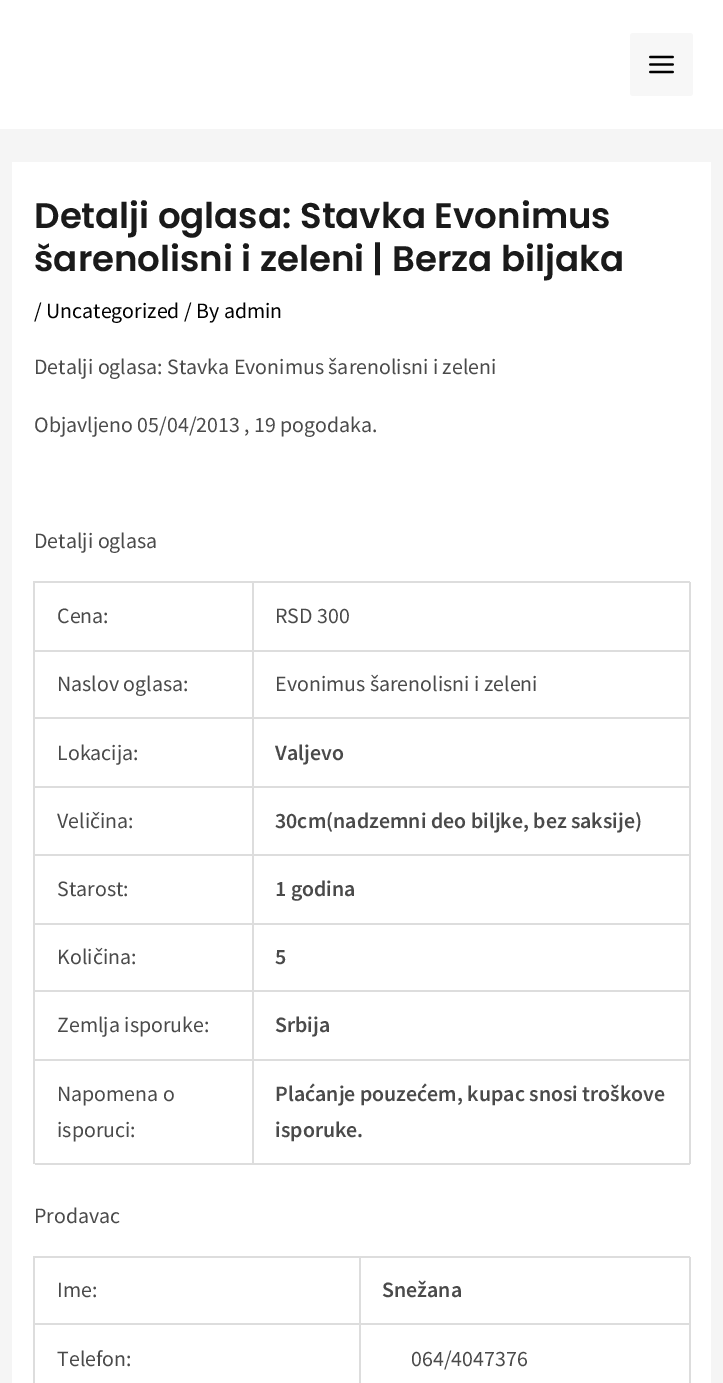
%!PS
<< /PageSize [723 1383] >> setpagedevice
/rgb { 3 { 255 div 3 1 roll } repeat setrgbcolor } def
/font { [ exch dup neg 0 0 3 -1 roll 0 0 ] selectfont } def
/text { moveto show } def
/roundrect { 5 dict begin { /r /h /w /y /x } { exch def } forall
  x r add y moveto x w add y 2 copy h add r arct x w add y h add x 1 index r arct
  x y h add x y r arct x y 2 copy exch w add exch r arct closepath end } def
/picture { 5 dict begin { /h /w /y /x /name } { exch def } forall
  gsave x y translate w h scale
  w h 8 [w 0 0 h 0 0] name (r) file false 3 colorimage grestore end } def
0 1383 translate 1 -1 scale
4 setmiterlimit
245 245 245 rgb
0 0 723 1383 rectfill
255 255 255 rgb
0 0 723 129 rectfill
247 247 247 rgb
630 33 63 63 3 roundrect fill
(img_01.rgb) 649 55 25 19 picture
255 255 255 rgb
12 162 699 1221 rectfill
221 221 221 rgb
33 581 657 2 rectfill
33 581 2 583 rectfill
252 582 2 69 rectfill
35 650 219 2 rectfill
689 582 2 69 rectfill
254 650 436 2 rectfill
252 651 2 204 rectfill
35 717 219 2 rectfill
689 651 2 204 rectfill
254 717 436 2 rectfill
35 786 655 2 rectfill
35 854 655 2 rectfill
252 855 2 69 rectfill
35 923 219 2 rectfill
689 855 2 69 rectfill
254 923 436 2 rectfill
252 924 2 240 rectfill
35 990 219 2 rectfill
689 924 2 240 rectfill
254 990 436 2 rectfill
35 1059 655 2 rectfill
35 1163 655 2 rectfill
33 1256 657 2 rectfill
33 1256 2 127 rectfill
359 1257 2 126 rectfill
35 1323 325 2 rectfill
689 1257 2 126 rectfill
360 1323 330 2 rectfill
/Poppins-SemiBold 35.6 font
26 26 26 rgb
(Detalji oglasa: Stavka Evonimus) 34 228 text
(šarenolisni i zeleni | Berza biljaka) 34 271 text
/SourceSansPro-Regular 21.9 font
0 0 0 rgb
(/ Uncategorized / By admin) 34 318 text
74 74 74 rgb
(Detalji oglasa: Stavka Evonimus šarenolisni i zeleni) 34 374 text
(Objavljeno 05/04/2013 , 19 pogodaka.) 34 432 text
(Detalji oglasa) 34 548 text
(Cena:) 57 623 text
(RSD 300) 275 623 text
(Naslov oglasa:) 57 691 text
(Evonimus šarenolisni i zeleni) 275 691 text
(Lokacija:) 57 760 text
/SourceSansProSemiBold-SemiBold 21.9 font
(Valjevo) 275 760 text
/SourceSansPro-Regular 21.9 font
(Veličina:) 57 828 text
/SourceSansProSemiBold-SemiBold 21.9 font
(30cm\(nadzemni deo biljke, bez saksije\)) 275 828 text
/SourceSansPro-Regular 21.9 font
(Starost:) 57 896 text
/SourceSansProSemiBold-SemiBold 21.9 font
(1 godina) 275 896 text
/SourceSansPro-Regular 21.9 font
(Količina:) 57 964 text
/SourceSansProSemiBold-SemiBold 21.9 font
(5) 275 964 text
/SourceSansPro-Regular 21.9 font
(Zemlja isporuke:) 57 1032 text
/SourceSansProSemiBold-SemiBold 21.9 font
(Srbija) 275 1032 text
/SourceSansPro-Regular 21.9 font
(Napomena o) 57 1101 text
(isporuci:) 57 1137 text
/SourceSansProSemiBold-SemiBold 21.9 font
(Plaćanje pouzećem, kupac snosi troškove) 275 1101 text
(isporuke.) 275 1137 text
/SourceSansPro-Regular 21.9 font
(Prodavac) 34 1223 text
(Ime:) 57 1297 text
/SourceSansProSemiBold-SemiBold 21.9 font
(Snežana) 382 1297 text
/SourceSansPro-Regular 21.9 font
(Telefon:) 57 1366 text
(064/4047376) 411 1366 text
showpage
